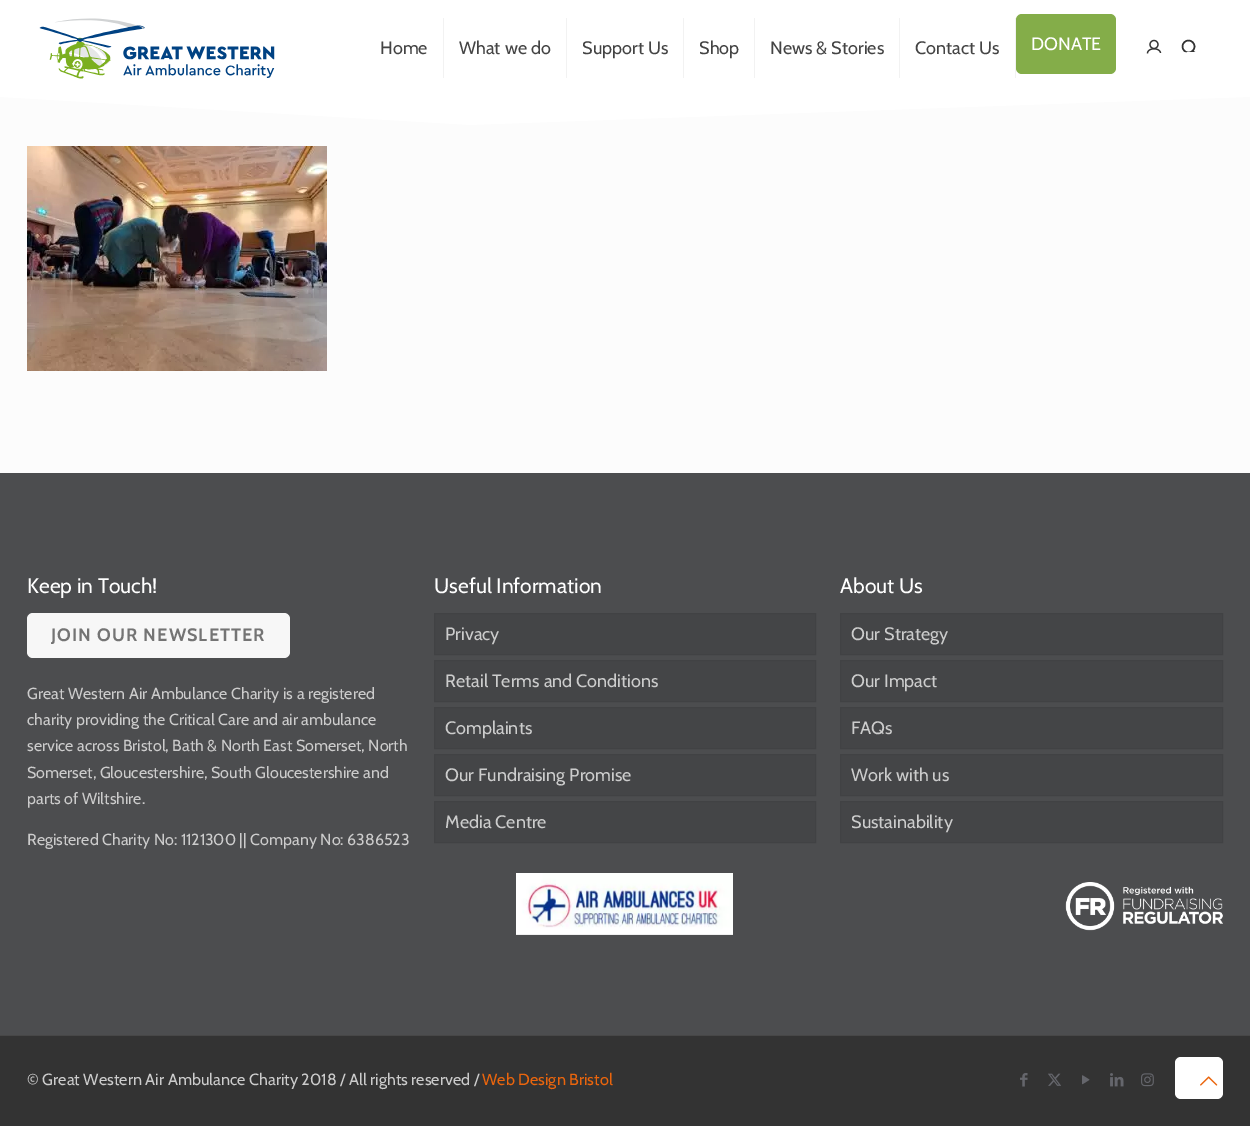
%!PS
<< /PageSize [1250 1126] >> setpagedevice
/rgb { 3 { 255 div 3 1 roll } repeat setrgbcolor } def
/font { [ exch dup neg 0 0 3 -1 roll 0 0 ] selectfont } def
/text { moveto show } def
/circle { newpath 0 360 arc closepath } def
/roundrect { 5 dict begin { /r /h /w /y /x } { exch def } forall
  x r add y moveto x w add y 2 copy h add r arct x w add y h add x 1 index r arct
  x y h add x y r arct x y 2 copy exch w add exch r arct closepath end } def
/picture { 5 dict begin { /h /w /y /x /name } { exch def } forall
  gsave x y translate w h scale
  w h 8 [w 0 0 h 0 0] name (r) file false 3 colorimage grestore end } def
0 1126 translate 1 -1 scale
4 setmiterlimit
252 252 252 rgb
0 0 1250 1126 rectfill
255 255 255 rgb
0 0 1250 78 rectfill
(img_02.rgb) 1146 39 16 15 picture
51 51 51 rgb
1.5 setlinewidth
1188.5 46.5 6 circle stroke
1192.5 50.5 moveto 5 5 rlineto stroke
255 255 255 rgb
1250 97 moveto -780 28 rlineto -470 -28 rlineto 0 -47 rlineto 467 28 rlineto 783 -28 rlineto fill
(img_01.rgb) 39 18 236 61 picture
242 242 242 rgb
443 18 1 60 rectfill
566 18 1 60 rectfill
683 18 1 60 rectfill
754 18 1 60 rectfill
899 18 1 60 rectfill
1015 18 1 60 rectfill
132 173 73 rgb
1016 14 100 60 6 roundrect fill
(img_03.rgb) 27 146 300 225 picture
51 51 51 rgb
0 1036 1250 90 rectfill
76 77 79 rgb
0 473 1250 562 rectfill
247 247 247 rgb
27 613 263 45 6 roundrect fill
68 69 71 rgb
434.5 613.5 moveto 381 0 rlineto 0 41 rlineto -381 0 rlineto closepath gsave fill grestore
65 66 68 rgb
1 setlinewidth
stroke
68 69 71 rgb
434.5 660.5 moveto 381 0 rlineto 0 41 rlineto -381 0 rlineto closepath gsave fill grestore
65 66 68 rgb
stroke
68 69 71 rgb
434.5 707.5 moveto 381 0 rlineto 0 41 rlineto -381 0 rlineto closepath gsave fill grestore
65 66 68 rgb
stroke
68 69 71 rgb
434.5 754.5 moveto 381 0 rlineto 0 41 rlineto -381 0 rlineto closepath gsave fill grestore
65 66 68 rgb
stroke
68 69 71 rgb
434.5 801.5 moveto 381 0 rlineto 0 41 rlineto -381 0 rlineto closepath gsave fill grestore
65 66 68 rgb
stroke
(img_04.rgb) 516 873 217 62 picture
68 69 71 rgb
840.5 613.5 moveto 382 0 rlineto 0 41 rlineto -382 0 rlineto closepath gsave fill grestore
65 66 68 rgb
stroke
68 69 71 rgb
840.5 660.5 moveto 382 0 rlineto 0 41 rlineto -382 0 rlineto closepath gsave fill grestore
65 66 68 rgb
stroke
68 69 71 rgb
840.5 707.5 moveto 382 0 rlineto 0 41 rlineto -382 0 rlineto closepath gsave fill grestore
65 66 68 rgb
stroke
68 69 71 rgb
840.5 754.5 moveto 382 0 rlineto 0 41 rlineto -382 0 rlineto closepath gsave fill grestore
65 66 68 rgb
stroke
68 69 71 rgb
840.5 801.5 moveto 382 0 rlineto 0 41 rlineto -382 0 rlineto closepath gsave fill grestore
65 66 68 rgb
stroke
(img_05.rgb) 1065 882 158 49 picture
71 71 71 rgb
0 1035 1250 1 rectfill
(img_06.rgb) 1020 1073 8 14 picture
(img_07.rgb) 1048 1073 13 13 picture
(img_08.rgb) 1082 1075 8 10 picture
(img_09.rgb) 1110 1073 14 14 picture
(img_10.rgb) 1141 1073 13 14 picture
255 255 255 rgb
1175 1057 48 42 6 roundrect fill
(img_11.rgb) 1200 1076 18 10 picture
/Cabin-Regular 18 font
68 68 68 rgb
(Home) 380 54 text
(What we do) 459 54 text
(Support Us) 582 54 text
(Shop) 699 54 text
(News & Stories) 770 54 text
(Contact Us) 915 54 text
255 255 255 rgb
(DONATE) 1031 50 text
/Cabin-Regular 21 font
(Keep in Touch!) 27 593 text
/Cabin-Bold 18 font
116 116 116 rgb
51 641 moveto 1.1 0 (JOIN OUR NEWSLETTER) ashow
/Cabin-Regular 16 font
204 204 204 rgb
(Great Western Air Ambulance Charity is a registered) 27 699 text
(charity providing the Critical Care and air ambulance) 27 725 text
(service across Bristol, Bath & North East Somerset, North) 27 751 text
(Somerset, Gloucestershire, South Gloucestershire and) 27 778 text
(parts of Wiltshire.) 27 804 text
(Registered Charity No: 1121300 || Company No: 6386523) 27 845 text
/Cabin-Regular 21 font
255 255 255 rgb
(Useful Information) 434 593 text
/Cabin-Regular 18 font
204 204 204 rgb
(Privacy) 445 640 text
(Retail Terms and Conditions) 445 687 text
(Complaints) 445 734 text
(Our Fundraising Promise) 445 781 text
(Media Centre) 445 828 text
/Cabin-Regular 21 font
255 255 255 rgb
(About Us) 840 593 text
/Cabin-Regular 18 font
204 204 204 rgb
(Our Strategy) 851 640 text
(Our Impact) 851 687 text
(FAQs) 851 734 text
(Work with us) 851 781 text
(Sustainability) 851 828 text
/Cabin-Regular 16.2 font
(© Great Western Air Ambulance Charity 2018 / All rights reserved /) 27 1085 text
234 101 13 rgb
(Web Design Bristol) 482 1085 text
showpage
